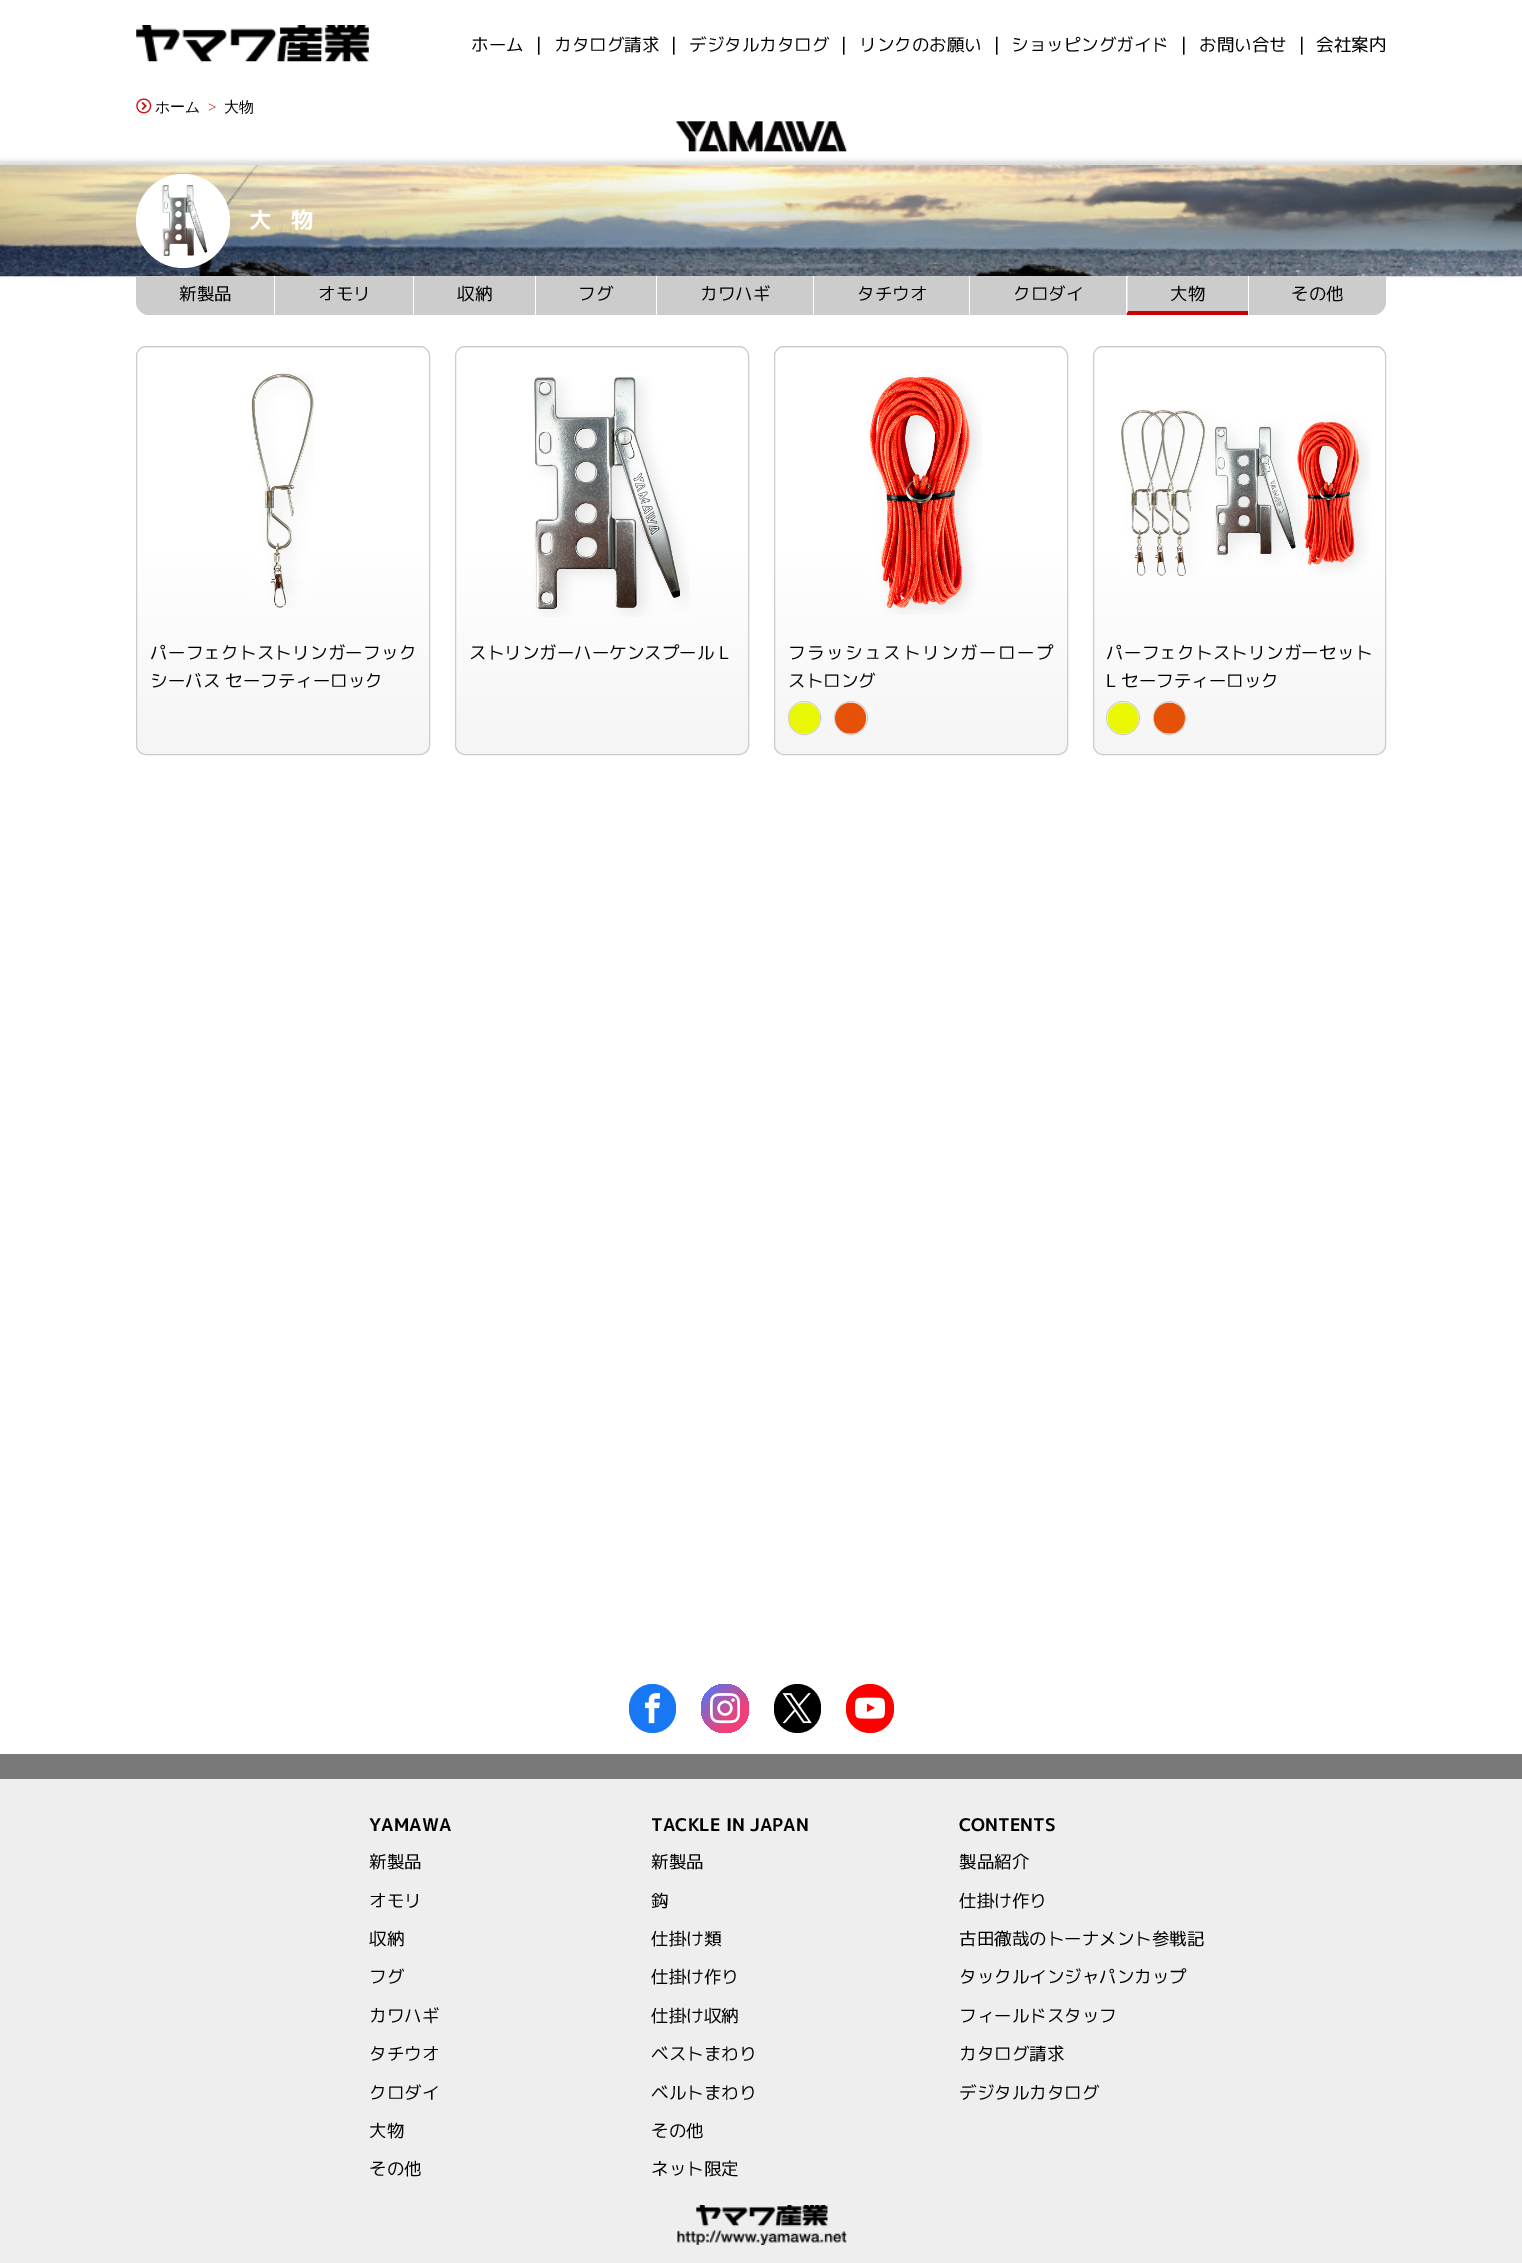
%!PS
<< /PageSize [1522 2263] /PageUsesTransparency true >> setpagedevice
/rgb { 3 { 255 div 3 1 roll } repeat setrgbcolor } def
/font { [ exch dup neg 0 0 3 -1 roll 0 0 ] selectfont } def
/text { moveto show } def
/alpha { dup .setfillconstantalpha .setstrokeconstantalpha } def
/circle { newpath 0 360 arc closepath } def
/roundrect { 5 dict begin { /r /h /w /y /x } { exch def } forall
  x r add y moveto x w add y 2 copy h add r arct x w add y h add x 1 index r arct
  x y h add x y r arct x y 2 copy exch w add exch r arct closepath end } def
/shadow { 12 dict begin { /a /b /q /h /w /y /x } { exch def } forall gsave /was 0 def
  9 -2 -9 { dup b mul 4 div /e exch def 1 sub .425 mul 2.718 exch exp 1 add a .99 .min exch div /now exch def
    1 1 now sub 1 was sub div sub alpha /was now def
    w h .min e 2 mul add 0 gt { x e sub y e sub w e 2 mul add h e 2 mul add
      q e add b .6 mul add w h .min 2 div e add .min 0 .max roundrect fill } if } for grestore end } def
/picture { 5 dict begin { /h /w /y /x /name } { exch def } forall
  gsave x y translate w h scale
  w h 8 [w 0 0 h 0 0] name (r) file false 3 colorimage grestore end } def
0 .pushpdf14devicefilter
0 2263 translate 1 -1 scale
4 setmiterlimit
255 255 255 rgb
0 0 1522 2263 rectfill
(img_01.rgb) 136 25 233 37 picture
(img_02.rgb) 136 98 16 16 picture
(img_03.rgb) 676 121 171 31 picture
0 0 0 rgb
-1 161 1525 114 0 2 0.15 shadow
(img_04.rgb) 0 165 1522 112 picture
255 255 255 rgb
183 221 47 circle fill
(img_05.rgb) 162 185 46 71 picture
204 204 204 rgb
136 276 moveto 1250 0 rlineto 0 26 rlineto 0 7 -6 13 -13 13 rcurveto -1224 0 rlineto -7 0 -13 -6 -13 -13 rcurveto closepath fill
255 255 255 rgb
274 276 1 39 rectfill
413 276 1 39 rectfill
535 276 1 39 rectfill
656 276 1 39 rectfill
813 276 1 39 rectfill
969 276 1 39 rectfill
204 0 0 rgb
1248 315 moveto -122 0 rlineto 2 -4 rlineto 120 0 rlineto closepath fill
255 255 255 rgb
1126 315 moveto 0 -39 rlineto 1.5 0 rlineto 0 35 rlineto closepath fill
1248 276 1 39 rectfill
gsave
136 346 294 409 10 roundrect clip newpath
gsave 136 346 moveto 294 0 rlineto 0 2 rlineto -294 0 rlineto closepath clip newpath
<< /ShadingType 2 /ColorSpace /DeviceRGB /Coords [283 -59 283 348] /Extend [true true] /Function << /FunctionType 3 /Domain [0 1] /Functions [<< /FunctionType 2 /Domain [0 1] /C0 [1 1 1] /C1 [1 1 1] /N 1 >> << /FunctionType 2 /Domain [0 1] /C0 [1 1 1] /C1 [0.961 0.961 0.961] /N 1 >>] /Bounds [0.5] /Encode [0 1 0 1] >> >> shfill grestore
gsave 136 348 moveto 294 0 rlineto 0 406 rlineto -294 0 rlineto closepath clip newpath
<< /ShadingType 2 /ColorSpace /DeviceRGB /Coords [283 348 283 754] /Extend [true true] /Function << /FunctionType 3 /Domain [0 1] /Functions [<< /FunctionType 2 /Domain [0 1] /C0 [1 1 1] /C1 [1 1 1] /N 1 >> << /FunctionType 2 /Domain [0 1] /C0 [1 1 1] /C1 [0.961 0.961 0.961] /N 1 >>] /Bounds [0.5] /Encode [0 1 0 1] >> >> shfill grestore
grestore
204 204 204 rgb
136.5 346.5 293 408 9.5 roundrect stroke
(img_06.rgb) 251 373 63 235 picture
gsave
455 346 294 409 10 roundrect clip newpath
gsave 455 346 moveto 294 0 rlineto 0 2 rlineto -294 0 rlineto closepath clip newpath
<< /ShadingType 2 /ColorSpace /DeviceRGB /Coords [602 -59 602 348] /Extend [true true] /Function << /FunctionType 3 /Domain [0 1] /Functions [<< /FunctionType 2 /Domain [0 1] /C0 [1 1 1] /C1 [1 1 1] /N 1 >> << /FunctionType 2 /Domain [0 1] /C0 [1 1 1] /C1 [0.961 0.961 0.961] /N 1 >>] /Bounds [0.5] /Encode [0 1 0 1] >> >> shfill grestore
gsave 455 348 moveto 294 0 rlineto 0 406 rlineto -294 0 rlineto closepath clip newpath
<< /ShadingType 2 /ColorSpace /DeviceRGB /Coords [602 348 602 754] /Extend [true true] /Function << /FunctionType 3 /Domain [0 1] /Functions [<< /FunctionType 2 /Domain [0 1] /C0 [1 1 1] /C1 [1 1 1] /N 1 >> << /FunctionType 2 /Domain [0 1] /C0 [1 1 1] /C1 [0.961 0.961 0.961] /N 1 >>] /Bounds [0.5] /Encode [0 1 0 1] >> >> shfill grestore
grestore
455.5 346.5 293 408 9.5 roundrect stroke
(img_07.rgb) 534 376 156 241 picture
gsave
774 346 294 409 10 roundrect clip newpath
gsave 774 346 moveto 294 0 rlineto 0 2 rlineto -294 0 rlineto closepath clip newpath
<< /ShadingType 2 /ColorSpace /DeviceRGB /Coords [921 -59 921 348] /Extend [true true] /Function << /FunctionType 3 /Domain [0 1] /Functions [<< /FunctionType 2 /Domain [0 1] /C0 [1 1 1] /C1 [1 1 1] /N 1 >> << /FunctionType 2 /Domain [0 1] /C0 [1 1 1] /C1 [0.961 0.961 0.961] /N 1 >>] /Bounds [0.5] /Encode [0 1 0 1] >> >> shfill grestore
gsave 774 348 moveto 294 0 rlineto 0 406 rlineto -294 0 rlineto closepath clip newpath
<< /ShadingType 2 /ColorSpace /DeviceRGB /Coords [921 348 921 754] /Extend [true true] /Function << /FunctionType 3 /Domain [0 1] /Functions [<< /FunctionType 2 /Domain [0 1] /C0 [1 1 1] /C1 [1 1 1] /N 1 >> << /FunctionType 2 /Domain [0 1] /C0 [1 1 1] /C1 [0.961 0.961 0.961] /N 1 >>] /Bounds [0.5] /Encode [0 1 0 1] >> >> shfill grestore
grestore
774.5 346.5 293 408 9.5 roundrect stroke
(img_08.rgb) 869 375 113 240 picture
788.5 701.5 32 33 16 roundrect stroke
(img_09.rgb) 788 702 32 32 picture
851 718 16.5 circle stroke
(img_10.rgb) 835 702 32 32 picture
gsave
1093 346 293 409 10 roundrect clip newpath
gsave 1093 346 moveto 293 0 rlineto 0 2 rlineto -293 0 rlineto closepath clip newpath
<< /ShadingType 2 /ColorSpace /DeviceRGB /Coords [1239 -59 1239 348] /Extend [true true] /Function << /FunctionType 3 /Domain [0 1] /Functions [<< /FunctionType 2 /Domain [0 1] /C0 [1 1 1] /C1 [1 1 1] /N 1 >> << /FunctionType 2 /Domain [0 1] /C0 [1 1 1] /C1 [0.961 0.961 0.961] /N 1 >>] /Bounds [0.5] /Encode [0 1 0 1] >> >> shfill grestore
gsave 1093 348 moveto 293 0 rlineto 0 406 rlineto -293 0 rlineto closepath clip newpath
<< /ShadingType 2 /ColorSpace /DeviceRGB /Coords [1239 348 1239 754] /Extend [true true] /Function << /FunctionType 3 /Domain [0 1] /Functions [<< /FunctionType 2 /Domain [0 1] /C0 [1 1 1] /C1 [1 1 1] /N 1 >> << /FunctionType 2 /Domain [0 1] /C0 [1 1 1] /C1 [0.961 0.961 0.961] /N 1 >>] /Bounds [0.5] /Encode [0 1 0 1] >> >> shfill grestore
grestore
1093.5 346.5 292 408 9.5 roundrect stroke
(img_11.rgb) 1121 410 250 166 picture
1123 718 16.5 circle stroke
(img_12.rgb) 1107 702 32 32 picture
1153.5 701.5 32 33 16 roundrect stroke
(img_13.rgb) 1153 702 32 32 picture
24 119 242 rgb
629 1684 47 49 23.5 roundrect fill
(img_14.rgb) 645 1693 15 31 picture
gsave 701 1684 48 49 24 roundrect clip newpath
<< /ShadingType 2 /ColorSpace /DeviceRGB /Coords [701 1684 749 1732] /Extend [true true] /Function << /FunctionType 3 /Domain [0 1] /Functions [<< /FunctionType 2 /Domain [0 1] /C0 [0.259 0.494 1] /C1 [0.945 0.247 0.475] /N 1 >> << /FunctionType 2 /Domain [0 1] /C0 [0.945 0.247 0.475] /C1 [0.945 0.247 0.475] /N 1 >>] /Bounds [0.7] /Encode [0 1 0 1] >> >> shfill grestore
(img_15.rgb) 710 1693 30 31 picture
0 0 0 rgb
774 1684 47 49 23.5 roundrect fill
(img_16.rgb) 782 1693 30 31 picture
255 0 0 rgb
846 1684 48 49 24 roundrect fill
(img_17.rgb) 855 1697 30 22 picture
238 238 238 rgb
0 1779 1522 484 rectfill
121 121 121 rgb
0 1754 1522 25 rectfill
(img_18.rgb) 677 2205 170 40 picture
/MPLUS1p-Regular 17.5 font
0 0 0 rgb
(ホーム) 471 51 text
(｜) 530 51 text
(カタログ請求) 554 51 text
(｜) 665 51 text
(デジタルカタログ) 689 51 text
(｜) 835 51 text
(リンクのお願い) 859 51 text
(｜) 988 51 text
(ショッピングガイド) 1011 51 text
(｜) 1175 51 text
(お問い合せ) 1199 51 text
(｜) 1293 51 text
(会社案内) 1316 51 text
/WenQuanYiZenHei-Medium 15 font
(ホーム) 155 112 text
/LiberationSerif-Regular 15 font
205 18 27 rgb
(>) 208 112 text
/WenQuanYiZenHei-Medium 15 font
0 0 0 rgb
(大物) 224 112 text
/MPLUS1p-Bold 22.5 font
255 255 255 rgb
249 228 moveto 19 0 (大物) ashow
/MPLUS1p-Regular 17.5 font
0 0 0 rgb
(新製品) 179 300 text
(オモリ) 318 300 text
(収納) 457 300 text
(フグ) 578 300 text
(カワハギ) 700 300 text
(タチウオ) 857 300 text
(クロダイ) 1013 300 text
(大物) 1170 300 text
(その他) 1291 300 text
150 659 moveto 0.25 0 (パーフェクトストリンガーフック) ashow
(シーバス セーフティーロック) 150 687 text
(ストリンガーハーケンスプール L) 469 659 text
788 659 moveto 1.6 0 (フラッシュストリンガーロープ) ashow
(ストロング) 788 687 text
1106 659 moveto 0.25 0 (パーフェクトストリンガーセット) ashow
(L セーフティーロック) 1106 687 text
/MPLUS1p-Bold 17.5 font
(YAMAWA) 369 1831 text
/MPLUS1p-Regular 17.5 font
(新製品) 369 1868 text
(オモリ) 369 1907 text
(収納) 369 1945 text
(フグ) 369 1983 text
(カワハギ) 369 2022 text
(タチウオ) 369 2060 text
(クロダイ) 369 2099 text
(大物) 369 2137 text
(その他) 369 2175 text
/MPLUS1p-Bold 17.5 font
(TACKLE IN JAPAN) 651 1831 text
/MPLUS1p-Regular 17.5 font
(新製品) 651 1868 text
(鈎) 651 1907 text
(仕掛け類) 651 1945 text
(仕掛け作り) 651 1983 text
(仕掛け収納) 651 2022 text
(ベストまわり) 651 2060 text
(ベルトまわり) 651 2099 text
(その他) 651 2137 text
(ネット限定) 651 2175 text
/MPLUS1p-Bold 17.5 font
(CONTENTS) 959 1831 text
/MPLUS1p-Regular 17.5 font
(製品紹介) 959 1868 text
(仕掛け作り) 959 1907 text
(古田徹哉のトーナメント参戦記) 959 1945 text
(タックルインジャパンカップ) 959 1983 text
(フィールドスタッフ) 959 2022 text
(カタログ請求) 959 2060 text
(デジタルカタログ) 959 2099 text
.poppdf14devicefilter showpage
